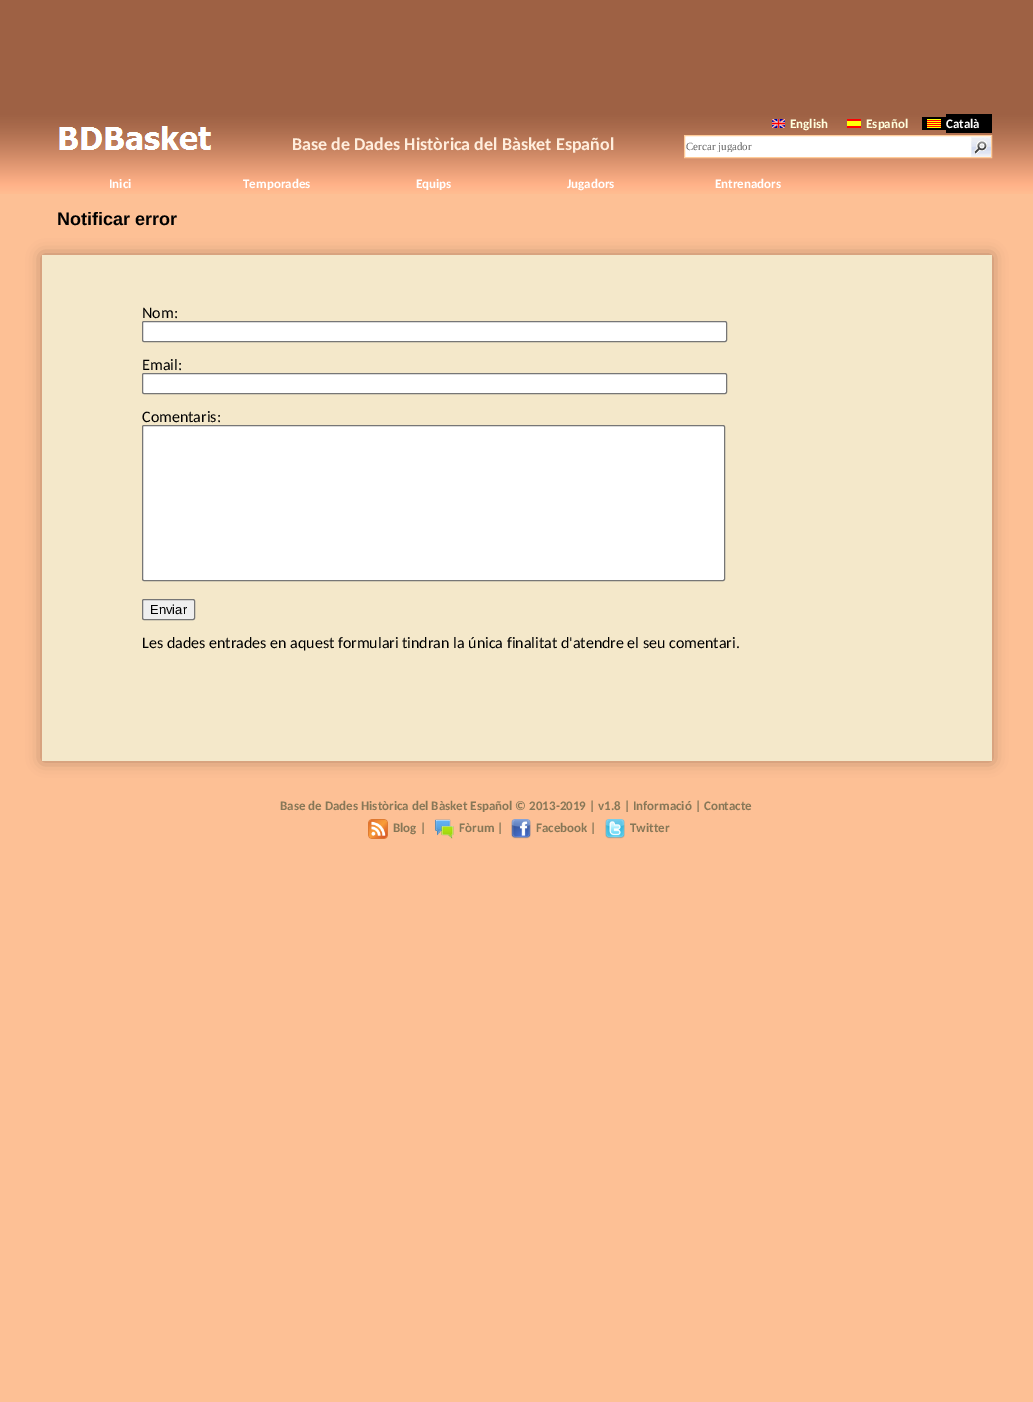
%!PS
<< /PageSize [1033 1402] /PageUsesTransparency true >> setpagedevice
/rgb { 3 { 255 div 3 1 roll } repeat setrgbcolor } def
/font { [ exch dup neg 0 0 3 -1 roll 0 0 ] selectfont } def
/text { moveto show } def
/alpha { dup .setfillconstantalpha .setstrokeconstantalpha } def
/roundrect { 5 dict begin { /r /h /w /y /x } { exch def } forall
  x r add y moveto x w add y 2 copy h add r arct x w add y h add x 1 index r arct
  x y h add x y r arct x y 2 copy exch w add exch r arct closepath end } def
/shadow { 12 dict begin { /a /b /q /h /w /y /x } { exch def } forall gsave /was 0 def
  9 -2 -9 { dup b mul 4 div /e exch def 1 sub .425 mul 2.718 exch exp 1 add a .99 .min exch div /now exch def
    1 1 now sub 1 was sub div sub alpha /was now def
    w h .min e 2 mul add 0 gt { x e sub y e sub w e 2 mul add h e 2 mul add
      q e add b .6 mul add w h .min 2 div e add .min 0 .max roundrect fill } if } for grestore end } def
/picture { 5 dict begin { /h /w /y /x /name } { exch def } forall
  gsave x y translate w h scale
  w h 8 [w 0 0 h 0 0] name (r) file false 3 colorimage grestore end } def
0 .pushpdf14devicefilter
0 1402 translate 1 -1 scale
4 setmiterlimit
253 192 149 rgb
0 0 1033 1402 rectfill
158 97 68 rgb
0 0 1033 110 rectfill
(img_01.rgb) 0 110 1033 84 picture
(img_02.rgb) 59 126 153 24 picture
(img_03.rgb) 772 119 13 9 picture
(img_04.rgb) 847 119 14 9 picture
0 0 0 rgb
922 117 24 13 rectfill
(img_05.rgb) 927 119 14 9 picture
946 114 46 19 rectfill
255 255 255 rgb
684.5 135.5 moveto 307 0 rlineto 0 22 rlineto -307 0 rlineto closepath gsave fill grestore
255 204 153 rgb
stroke
(img_06.rgb) 971 137 20 20 picture
0 0 0 rgb
42 255 950 506 0 7.5 0.3 shadow
244 232 202 rgb
42 255 950 506 rectfill
255 255 255 rgb
142.5 321.5 584 20 1.5 roundrect gsave fill grestore
118 118 118 rgb
stroke
255 255 255 rgb
142.5 373.5 584 20 1.5 roundrect gsave fill grestore
118 118 118 rgb
stroke
255 255 255 rgb
142.5 425.5 582 155 1.5 roundrect gsave fill grestore
118 118 118 rgb
stroke
239 239 239 rgb
142.5 599.5 52 20 1.5 roundrect gsave fill grestore
118 118 118 rgb
stroke
(img_07.rgb) 368 819 20 20 picture
(img_08.rgb) 435 819 19 20 picture
(img_09.rgb) 511 819 20 20 picture
(img_10.rgb) 605 819 20 20 picture
/Carlito-Bold 18 font
255 238 221 rgb
(Base de Dades Històrica del Bàsket Español) 292 150 text
/Carlito-Bold 13 font
255 255 221 rgb
(English) 790 128 text
(Español) 866 128 text
255 255 255 rgb
(Català) 946 128 text
gsave
686 140 275 12 rectclip
/LiberationSerif-Regular 11 font
102 102 102 rgb
(Cercar jugador) 686 150 text
grestore
(Inici) 109 188 text
(Temporades) 243 188 text
(Equips) 416 188 text
(Jugadors) 567 188 text
(Entrenadors) 715 188 text
/LiberationSans-Bold 18 font
0 0 0 rgb
(Notificar error) 57 225 text
/Carlito-Regular 16 font
(Nom:) 142 318 text
(Email:) 142 370 text
(Comentaris:) 142 422 text
/LiberationSans-Regular 13 font
(Enviar) 150 614 text
/Carlito-Regular 16 font
(Les dades entrades en aquest formulari tindran la única finalitat d'atendre el seu comentari.) 142 648 text
/Carlito-Bold 13 font
135 119 87 rgb
(Base de Dades Històrica del Bàsket Español © 2013-2019 | v1.8 | Informació | Contacte) 280 810 text
(Blog |) 393 832 text
(Fòrum |) 459 832 text
(Facebook |) 536 832 text
(Twitter) 630 832 text
.poppdf14devicefilter showpage
